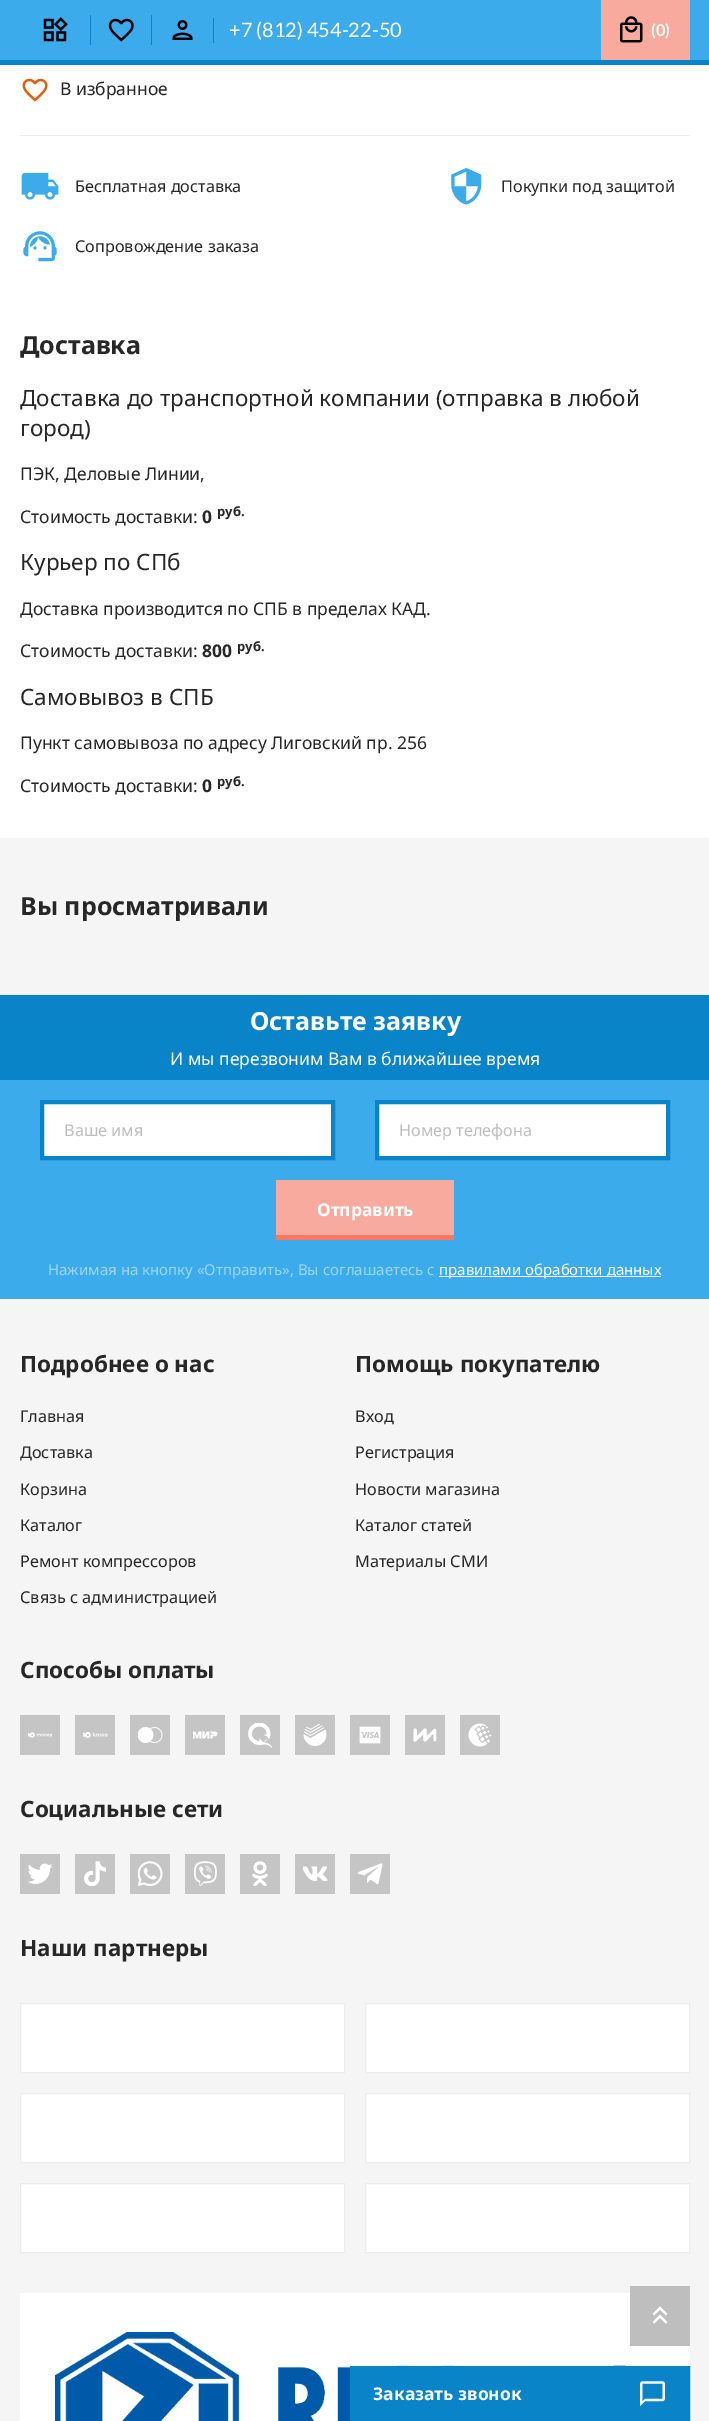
%!PS
<< /PageSize [709 2421] >> setpagedevice
/rgb { 3 { 255 div 3 1 roll } repeat setrgbcolor } def
/font { [ exch dup neg 0 0 3 -1 roll 0 0 ] selectfont } def
/text { moveto show } def
/picture { 5 dict begin { /h /w /y /x /name } { exch def } forall
  gsave x y translate w h scale
  w h 8 [w 0 0 h 0 0] name (r) file false 3 colorimage grestore end } def
0 2421 translate 1 -1 scale
4 setmiterlimit
255 255 255 rgb
0 0 709 2421 rectfill
59 171 235 rgb
0 0 709 60 rectfill
10 132 201 rgb
0 60 709 5 rectfill
(img_01.rgb) 43 17 25 25 picture
90 15 1 30 rectfill
(img_02.rgb) 108 18 26 24 picture
151 15 1 30 rectfill
(img_03.rgb) 172 20 21 20 picture
213 18 1 25 rectfill
247 170 157 rgb
601 0 89 60 rectfill
(img_04.rgb) 620 16 23 27 picture
236 236 236 rgb
20 135 670 1 rectfill
(img_05.rgb) 22 78 26 24 picture
(img_06.rgb) 21 172 38 28 picture
(img_07.rgb) 451 167 31 38 picture
(img_08.rgb) 23 231 34 31 picture
245 245 245 rgb
0 838 709 157 rectfill
10 132 201 rgb
0 995 709 85 rectfill
59 171 235 rgb
0 1080 709 219 rectfill
255 255 255 rgb
42 1102 moveto 291 0 rlineto 0 56 rlineto -291 0 rlineto closepath gsave fill grestore
10 132 201 rgb
4 setlinewidth
stroke
255 255 255 rgb
377 1102 moveto 291 0 rlineto 0 56 rlineto -291 0 rlineto closepath gsave fill grestore
10 132 201 rgb
stroke
247 170 157 rgb
276 1180 178 55 rectfill
250 119 97 rgb
276 1235 178 5 rectfill
255 255 255 rgb
439 1276 222 1 rectfill
245 245 245 rgb
0 1299 709 1122 rectfill
197 197 197 rgb
20 1715 40 40 rectfill
(img_09.rgb) 28 1732 25 6 picture
75 1715 40 40 rectfill
(img_10.rgb) 83 1732 25 6 picture
130 1715 40 40 rectfill
(img_11.rgb) 138 1727 25 16 picture
185 1715 40 40 rectfill
(img_12.rgb) 193 1731 25 8 picture
240 1715 40 40 rectfill
(img_13.rgb) 248 1723 24 25 picture
295 1715 40 40 rectfill
(img_14.rgb) 303 1724 24 22 picture
350 1715 40 40 rectfill
(img_15.rgb) 359 1726 22 18 picture
405 1715 40 40 rectfill
(img_16.rgb) 413 1728 24 14 picture
460 1715 40 40 rectfill
(img_17.rgb) 468 1723 24 24 picture
20 1854 40 40 rectfill
(img_18.rgb) 28 1863 25 21 picture
75 1854 40 40 rectfill
(img_19.rgb) 84 1861 22 25 picture
130 1854 40 40 rectfill
(img_20.rgb) 138 1861 25 25 picture
185 1854 40 40 rectfill
(img_21.rgb) 194 1861 23 25 picture
240 1854 40 40 rectfill
(img_22.rgb) 252 1861 16 25 picture
295 1854 40 40 rectfill
(img_23.rgb) 303 1866 25 15 picture
350 1854 40 40 rectfill
(img_24.rgb) 358 1863 25 22 picture
255 255 255 rgb
20.5 2003.5 moveto 324 0 rlineto 0 69 rlineto -324 0 rlineto closepath gsave fill grestore
236 236 236 rgb
1 setlinewidth
stroke
255 255 255 rgb
365.5 2003.5 moveto 324 0 rlineto 0 69 rlineto -324 0 rlineto closepath gsave fill grestore
236 236 236 rgb
stroke
255 255 255 rgb
20.5 2093.5 moveto 324 0 rlineto 0 69 rlineto -324 0 rlineto closepath gsave fill grestore
236 236 236 rgb
stroke
255 255 255 rgb
365.5 2093.5 moveto 324 0 rlineto 0 69 rlineto -324 0 rlineto closepath gsave fill grestore
236 236 236 rgb
stroke
255 255 255 rgb
20.5 2183.5 moveto 324 0 rlineto 0 69 rlineto -324 0 rlineto closepath gsave fill grestore
236 236 236 rgb
stroke
255 255 255 rgb
365.5 2183.5 moveto 324 0 rlineto 0 69 rlineto -324 0 rlineto closepath gsave fill grestore
236 236 236 rgb
stroke
255 255 255 rgb
20 2293 670 128 rectfill
(img_25.rgb) 55 2332 572 89 picture
190 190 190 rgb
630 2286 60 60 rectfill
(img_26.rgb) 652 2306 16 18 picture
10 132 201 rgb
3 setlinewidth
351.5 2367.5 337 52 rectstroke
353 2369 334 49 rectfill
(img_27.rgb) 640 2381 25 26 picture
/Lato-Regular 20 font
255 255 255 rgb
(+7 \(812\) 454-22-50) 229 37 text
/Lato-Bold 16.25 font
(\(0\)) 651 36 text
/NotoSans-Regular 17.5 font
39 39 39 rgb
(В избранное) 60 95 text
/NotoSans-Regular 16.25 font
(Бесплатная доставка) 75 192 text
(Покупки под защитой) 501 192 text
(Сопровождение заказа) 75 252 text
/NotoSans-Bold 25 font
(Доставка) 20 354 text
/NotoSans-Regular 22.5 font
(Доставка до транспортной компании \(отправка в любой) 20 406 text
(город\)) 20 436 text
/NotoSans-Regular 17.5 font
(ПЭК, Деловые Линии,) 20 480 text
(Стоимость доставки:) 20 523 text
/NotoSans-Bold 17.5 font
(0) 202 523 text
/NotoSans-Bold 13 font
(руб.) 217 516 text
/NotoSans-Regular 22.5 font
(Курьер по СПб) 20 570 text
/NotoSans-Regular 17.5 font
(Доставка производится по СПБ в пределах КАД.) 20 615 text
(Стоимость доставки:) 20 657 text
/NotoSans-Bold 17.5 font
(800) 202 657 text
/NotoSans-Bold 13 font
(руб.) 237 651 text
/NotoSans-Regular 22.5 font
(Самовывоз в СПБ) 20 705 text
/NotoSans-Regular 17.5 font
(Пункт самовывоза по адресу Лиговский пр. 256) 20 749 text
(Стоимость доставки:) 20 792 text
/NotoSans-Bold 17.5 font
(0) 202 792 text
/NotoSans-Bold 13 font
(руб.) 217 786 text
/NotoSans-Bold 25 font
(Вы просматривали) 20 915 text
255 255 255 rgb
(Оставьте заявку) 250 1030 text
/NotoSans-Regular 17.5 font
(И мы перезвоним Вам в ближайшее время) 170 1065 text
/NotoSans-Regular 16.25 font
190 190 190 rgb
(Ваше имя) 64 1136 text
(Номер телефона) 399 1136 text
/NotoSans-Bold 17.5 font
255 255 255 rgb
(Отправить) 317 1216 text
/NotoSans-Regular 15 font
157 213 245 rgb
(Нажимая на кнопку «Отправить», Вы соглашаетесь с) 48 1275 text
255 255 255 rgb
(правилами обработки данных) 439 1275 text
/NotoSans-Bold 22.5 font
39 39 39 rgb
(Подробнее о нас) 20 1372 text
/NotoSans-Regular 16.25 font
(Главная) 20 1422 text
(Доставка) 20 1458 text
(Корзина) 20 1495 text
(Каталог) 20 1531 text
(Ремонт компрессоров) 20 1567 text
(Связь с администрацией) 20 1603 text
/NotoSans-Bold 22.5 font
(Помощь покупателю) 355 1372 text
/NotoSans-Regular 16.25 font
(Вход) 355 1422 text
(Регистрация) 355 1458 text
(Новости магазина) 355 1495 text
(Каталог статей) 355 1531 text
(Материалы СМИ) 355 1567 text
/NotoSans-Bold 22.5 font
(Способы оплаты) 20 1678 text
(Социальные сети) 20 1817 text
(Наши партнеры) 20 1956 text
/NotoSans-Bold 17.5 font
255 255 255 rgb
(Заказать звонок) 373 2400 text
showpage
